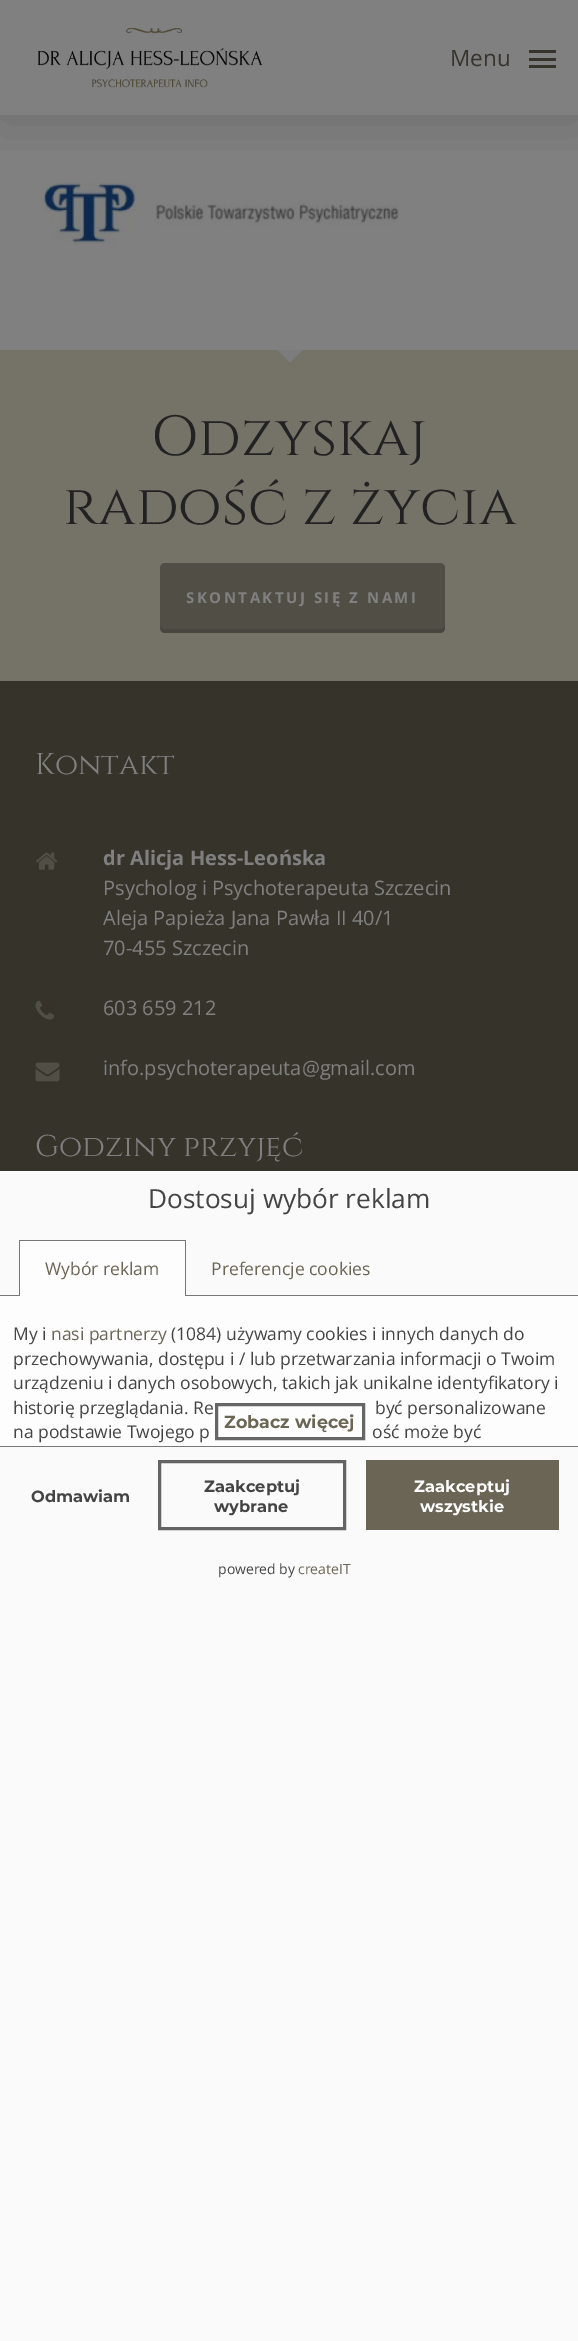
%!PS
<< /PageSize [578 2341] /PageUsesTransparency true >> setpagedevice
/rgb { 3 { 255 div 3 1 roll } repeat setrgbcolor } def
/font { [ exch dup neg 0 0 3 -1 roll 0 0 ] selectfont } def
/text { moveto show } def
/alpha { dup .setfillconstantalpha .setstrokeconstantalpha } def
/roundrect { 5 dict begin { /r /h /w /y /x } { exch def } forall
  x r add y moveto x w add y 2 copy h add r arct x w add y h add x 1 index r arct
  x y h add x y r arct x y 2 copy exch w add exch r arct closepath end } def
/shadow { 12 dict begin { /a /b /q /h /w /y /x } { exch def } forall gsave /was 0 def
  9 -2 -9 { dup b mul 4 div /e exch def 1 sub .425 mul 2.718 exch exp 1 add a .99 .min exch div /now exch def
    1 1 now sub 1 was sub div sub alpha /was now def
    w h .min e 2 mul add 0 gt { x e sub y e sub w e 2 mul add h e 2 mul add
      q e add b .6 mul add w h .min 2 div e add .min 0 .max roundrect fill } if } for grestore end } def
/picture { 5 dict begin { /h /w /y /x /name } { exch def } forall
  gsave x y translate w h scale
  w h 8 [w 0 0 h 0 0] name (r) file false 3 colorimage grestore end } def
0 .pushpdf14devicefilter
0 2341 translate 1 -1 scale
4 setmiterlimit
128 128 128 rgb
0 0 578 2341 rectfill
(img_02.rgb) 43 182 356 63 picture
gsave
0 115 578 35 rectclip
0 0 0 rgb
0 4 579 115 0 28 0.15 shadow
grestore
(img_01.rgb) 37 27 226 61 picture
54 51 43 rgb
529 50 27 3 rectfill
529 65 27 3 rectfill
529 58 27 3 rectfill
0 681 578 490 rectfill
117 114 104 rgb
0 350 578 331 rectfill
124 124 124 rgb
277.5 350 moveto 25 0 rlineto -12.5 12.5 rlineto closepath fill
80 78 69 rgb
160 563 285 70 5 roundrect fill
0.1 alpha
0 0 0 rgb
160 624 moveto 0 4 rlineto 0 3 2 5 5 5 rcurveto 275 0 rlineto 3 0 5 -2 5 -5 rcurveto 0 -4 rlineto 0 3 -2 5 -5 5 rcurveto -275 0 rlineto -3 0 -5 -2 -5 -5 rcurveto closepath fill
1 alpha
(img_03.rgb) 36 852 22 18 picture
(img_04.rgb) 35 1000 20 20 picture
(img_05.rgb) 35 1062 25 20 picture
250 250 250 rgb
0 1171 578 1170 rectfill
119 119 119 rgb
0 1295 578 1 rectfill
253 253 253 rgb
20 1241 165 55 rectfill
119 119 119 rgb
19 1240 167 1 rectfill
185 1240 1 58 rectfill
19 1240 1 58 rectfill
253 253 253 rgb
0 1296 578 150 rectfill
102 102 102 rgb
3 setlinewidth
216.5 1404.5 147 34 rectstroke
119 119 119 rgb
0 1446 578 1 rectfill
100 100 100 rgb
159.5 1461.5 185 67 rectstroke
107 101 85 rgb
366 1460 193 70 rectfill
/OpenSans-Regular 22.5 font
54 51 43 rgb
(Menu) 450 66 text
/Cinzel-Regular 56.25 font
34 34 34 rgb
(Odzyskaj) 151 455 text
(radość z życia) 63 524 text
/OpenSans-Bold 15 font
128 128 128 rgb
186 603 moveto 2.5 0 (SKONTAKTUJ SIĘ Z NAMI) ashow
/Cinzel-Regular 30 font
(Kontakt) 35 774 text
/OpenSans-Bold 20 font
(dr Alicja Hess-Leońska) 103 865 text
/OpenSans-Regular 20 font
(Psycholog i Psychoterapeuta Szczecin) 103 895 text
(Aleja Papieża Jana Pawła II 40/1) 103 925 text
(70-455 Szczecin) 103 955 text
(603 659 212) 103 1015 text
(info.psychoterapeuta@gmail.com) 103 1075 text
/Cinzel-Regular 30 font
(Godziny przyjęć) 35 1156 text
/OpenSans-Regular 26.25 font
68 68 68 rgb
(Dostosuj wybór reklam) 148 1208 text
/OpenSans-Regular 17.5 font
107 101 85 rgb
(Wybór reklam) 45 1275 text
(Preferencje cookies) 211 1275 text
68 68 68 rgb
(My i) 13 1340 text
107 101 85 rgb
(nasi partnerzy) 51 1340 text
68 68 68 rgb
(\(1084\) używamy cookies i innych danych do) 171 1340 text
(przechowywania, dostępu i / lub przetwarzania informacji o Twoim) 13 1365 text
(urządzeniu i danych osobowych, takich jak unikalne identyfikatory i) 13 1389 text
(historię przeglądania. Re) 13 1414 text
(być personalizowane) 375 1414 text
(na podstawie Twojego p) 13 1438 text
(ość może być) 372 1438 text
/Montserrat-Bold 17.5 font
107 101 85 rgb
(Zobacz więcej) 224 1428 text
/Montserrat-Bold 16.25 font
68 68 68 rgb
(Odmawiam) 31 1502 text
(Zaakceptuj) 204 1492 text
(wybrane) 214 1512 text
255 255 255 rgb
(Zaakceptuj) 414 1492 text
(wszystkie) 420 1512 text
/OpenSans-Regular 14 font
68 68 68 rgb
(powered by) 218 1574 text
107 101 85 rgb
(createIT) 298 1574 text
.poppdf14devicefilter showpage
